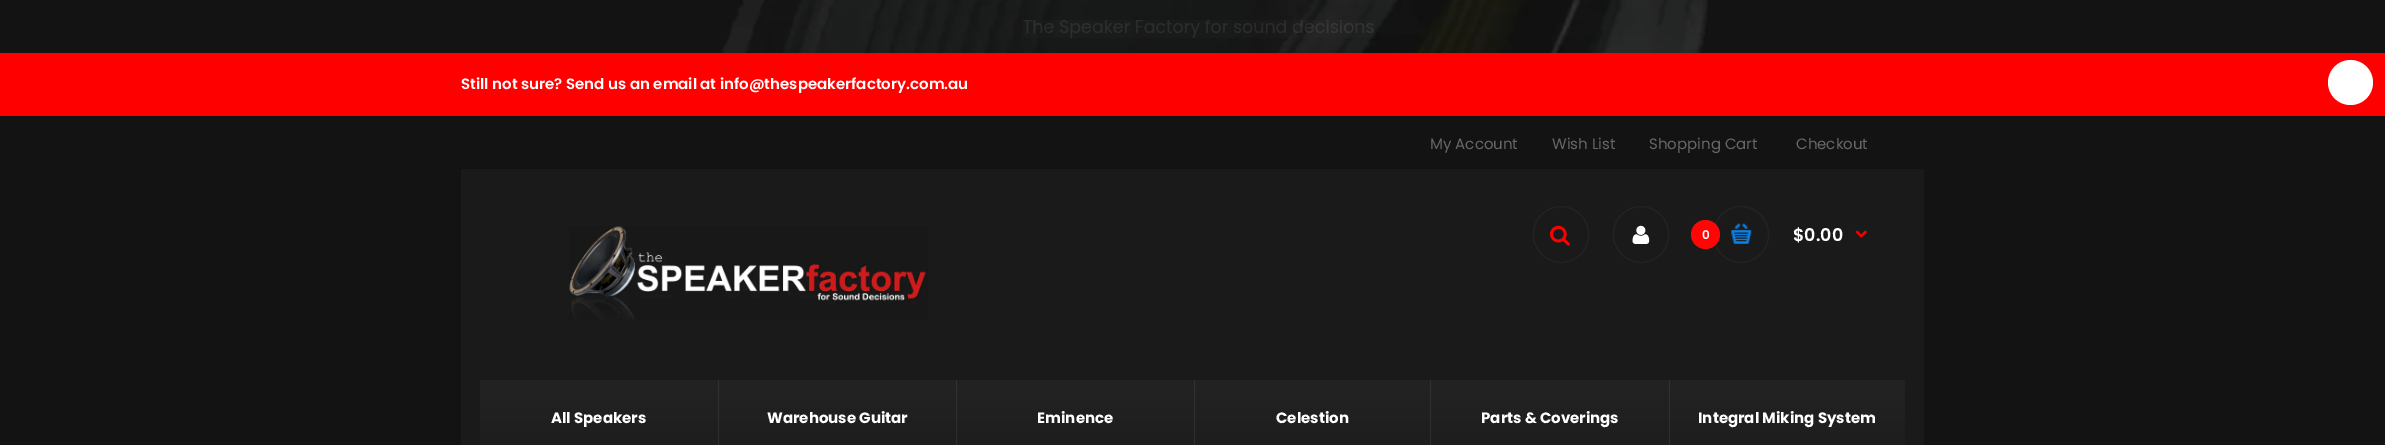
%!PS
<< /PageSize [2385 445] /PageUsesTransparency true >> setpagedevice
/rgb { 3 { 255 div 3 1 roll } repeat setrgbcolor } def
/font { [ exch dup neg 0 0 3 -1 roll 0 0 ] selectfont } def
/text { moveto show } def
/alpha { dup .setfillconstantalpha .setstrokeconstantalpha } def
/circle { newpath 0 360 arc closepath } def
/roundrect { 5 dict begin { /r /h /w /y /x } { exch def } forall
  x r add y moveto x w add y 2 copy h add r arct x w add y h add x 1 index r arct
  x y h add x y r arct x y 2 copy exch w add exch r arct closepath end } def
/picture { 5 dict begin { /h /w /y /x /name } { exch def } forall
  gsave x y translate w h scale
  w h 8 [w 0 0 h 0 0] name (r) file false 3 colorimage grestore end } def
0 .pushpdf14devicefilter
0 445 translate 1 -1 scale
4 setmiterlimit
19 19 19 rgb
0 0 2385 445 rectfill
(img_01.rgb) 677 0 1031 53 picture
(img_02.rgb) 1023 20 351 18 picture
255 0 0 rgb
0 53 2385 63 rectfill
255 255 255 rgb
2350.5 82.5 22.5 circle fill
26 26 26 rgb
461 169 1463 276 rectfill
(img_03.rgb) 569 226 359 94 picture
35 35 35 rgb
1533.5 206.5 55 56 27.5 roundrect stroke
(img_04.rgb) 1550 225 20 21 picture
1613.5 206.5 55 56 27.5 roundrect stroke
(img_05.rgb) 1632 225 18 19 picture
1713.5 206.5 55 56 27.5 roundrect stroke
255 5 5 rgb
1705.5 234.5 14.5 circle fill
(img_06.rgb) 1731 223 21 21 picture
(img_07.rgb) 1855 230 12 8 picture
gsave 480 380 moveto 1425 0 rlineto 0 65 rlineto -1425 0 rlineto closepath clip newpath
<< /ShadingType 2 /ColorSpace /DeviceRGB /Coords [1193 380 1193 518] /Extend [true true] /Function << /FunctionType 2 /Domain [0 1] /C0 [0.137 0.137 0.137] /C1 [0.094 0.094 0.094] /N 1 >> >> shfill grestore
0.07 alpha
255 255 255 rgb
718 380 1 65 rectfill
956 380 1 65 rectfill
1194 380 1 65 rectfill
1430 380 1 65 rectfill
1669 380 1 65 rectfill
/Poppins-SemiBold 15 font
1 alpha
(Still not sure? Send us an email at info@thespeakerfactory.com.au) 461 89 text
/Poppins-Regular 15 font
103 103 103 rgb
(My Account) 1430 149 text
(Wish List) 1552 149 text
(Shopping Cart) 1649 149 text
(Checkout) 1796 149 text
/Poppins-SemiBold 12 font
255 255 255 rgb
(0) 1702 239 text
/Poppins-SemiBold 17.5 font
($0.00) 1793 241 text
/Poppins-Bold 15 font
(All Speakers) 551 423 text
(Warehouse Guitar) 767 423 text
(Eminence) 1037 423 text
(Celestion) 1276 423 text
(Parts & Coverings) 1481 423 text
(Integral Miking System) 1698 423 text
.poppdf14devicefilter showpage
